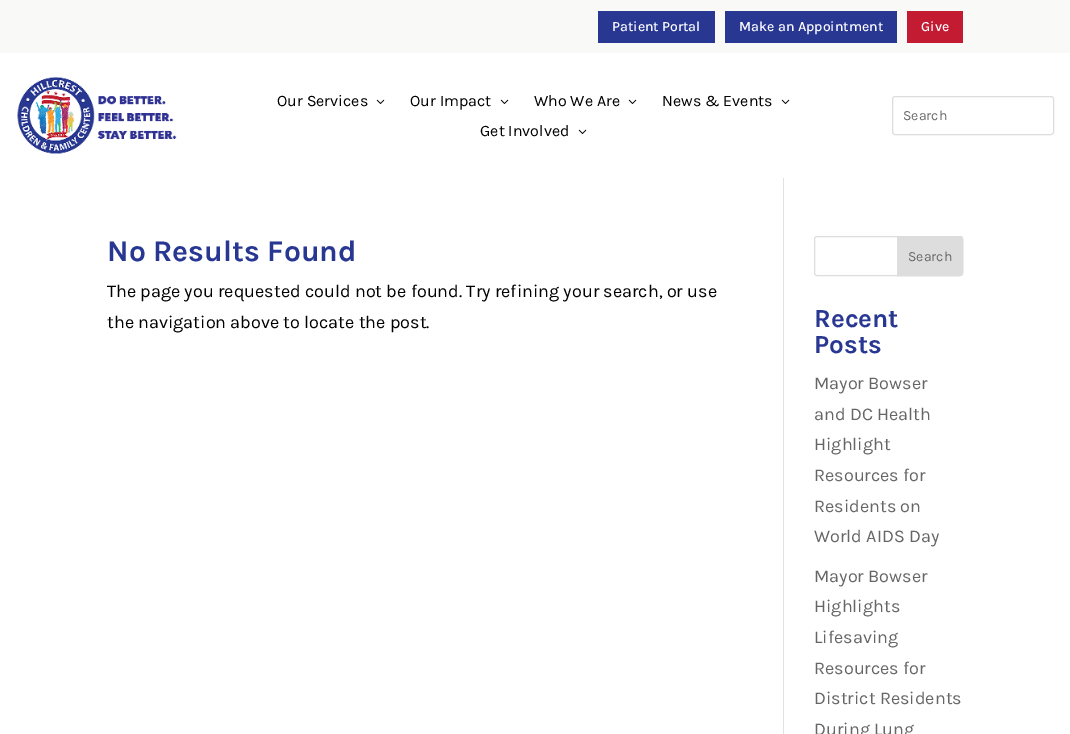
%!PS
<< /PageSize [1070 734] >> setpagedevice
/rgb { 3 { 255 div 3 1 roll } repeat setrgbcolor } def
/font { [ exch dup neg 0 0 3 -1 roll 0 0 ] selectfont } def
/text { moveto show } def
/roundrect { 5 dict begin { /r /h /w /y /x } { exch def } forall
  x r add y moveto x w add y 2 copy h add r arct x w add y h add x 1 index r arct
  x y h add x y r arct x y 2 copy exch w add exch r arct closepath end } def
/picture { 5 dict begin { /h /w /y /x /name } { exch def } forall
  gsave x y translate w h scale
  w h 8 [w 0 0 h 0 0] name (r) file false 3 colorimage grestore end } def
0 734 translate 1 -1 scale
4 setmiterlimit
255 255 255 rgb
0 0 1070 734 rectfill
249 249 247 rgb
0 0 1070 53 rectfill
40 55 146 rgb
598 11 117 32 rectfill
725 11 172 32 rectfill
194 27 50 rgb
907 11 56 32 rectfill
(img_01.rgb) 17 76 160 78 picture
(img_02.rgb) 376 99 9 5 picture
(img_02.rgb) 500 99 9 5 picture
(img_02.rgb) 628 99 9 5 picture
(img_02.rgb) 781 99 9 5 picture
(img_02.rgb) 578 129 9 5 picture
221 221 221 rgb
892.5 96.5 161 38 2.5 roundrect stroke
226 226 226 rgb
783 178 1 556 rectfill
221 221 221 rgb
814.5 236.5 148 39 2.5 roundrect stroke
897.5 236.5 moveto 62.5 0 rlineto 1.5 0 2.5 1 2.5 2.5 rcurveto 0 34 rlineto 0 1.5 -1 2.5 -2.5 2.5 rcurveto -62.5 0 rlineto closepath gsave fill grestore
stroke
/Karla-Medium 14 font
255 255 255 rgb
(Patient Portal) 612 31 text
(Make an Appointment) 739 31 text
(Give) 921 31 text
/Karla-Regular 16 font
0 0 0 rgb
(Our Services) 277 106 text
(Our Impact) 410 106 text
(Who We Are) 534 106 text
(News & Events) 662 106 text
(Get Involved) 480 136 text
/Karla-Regular 14 font
102 102 102 rgb
(Search) 903 120 text
/Karla-Bold 30 font
40 55 146 rgb
(No Results Found) 107 261 text
/Karla-Regular 18 font
0 0 0 rgb
(The page you requested could not be found. Try refining your search, or use) 107 297 text
(the navigation above to locate the post.) 107 328 text
/Karla-Regular 14 font
102 102 102 rgb
(Search) 908 261 text
/Karla-Bold 26 font
40 55 146 rgb
(Recent) 814 327 text
(Posts) 814 353 text
/Karla-Regular 18 font
102 102 102 rgb
(Mayor Bowser) 814 389 text
(and DC Health) 814 420 text
(Highlight) 814 450 text
(Resources for) 814 481 text
(Residents on) 814 512 text
(World AIDS Day) 814 542 text
(Mayor Bowser) 814 582 text
(Highlights) 814 612 text
(Lifesaving) 814 643 text
(Resources for) 814 674 text
(District Residents) 814 704 text
(During Lung) 814 735 text
showpage
